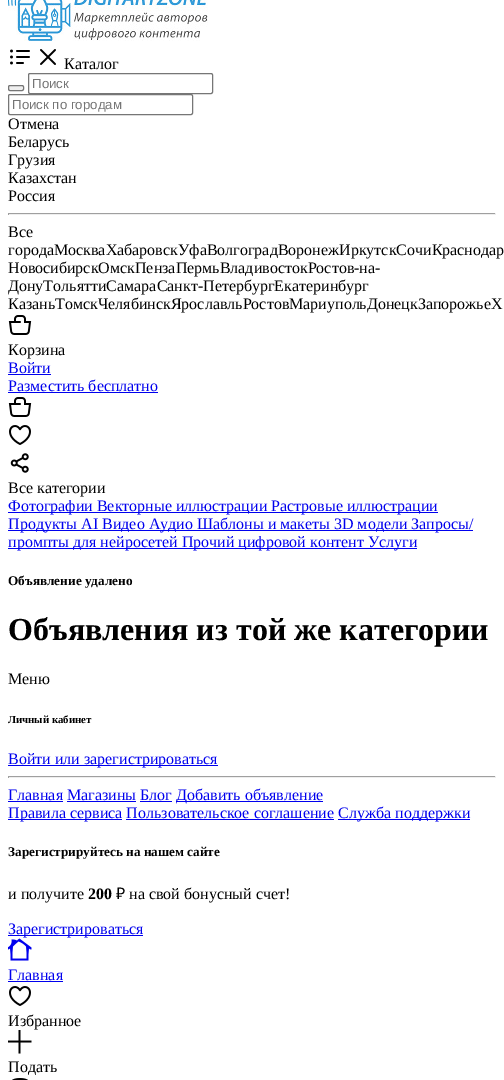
%!PS
<< /PageSize [504 1080] >> setpagedevice
/rgb { 3 { 255 div 3 1 roll } repeat setrgbcolor } def
/font { [ exch dup neg 0 0 3 -1 roll 0 0 ] selectfont } def
/text { moveto show } def
/roundrect { 5 dict begin { /r /h /w /y /x } { exch def } forall
  x r add y moveto x w add y 2 copy h add r arct x w add y h add x 1 index r arct
  x y h add x y r arct x y 2 copy exch w add exch r arct closepath end } def
/picture { 5 dict begin { /h /w /y /x /name } { exch def } forall
  gsave x y translate w h scale
  w h 8 [w 0 0 h 0 0] name (r) file false 3 colorimage grestore end } def
0 1080 translate 1 -1 scale
4 setmiterlimit
255 255 255 rgb
0 0 504 1080 rectfill
(img_01.rgb) 8 0 200 41 picture
(img_02.rgb) 10 49 20 16 picture
(img_03.rgb) 40 49 16 16 picture
239 239 239 rgb
8.5 85.5 15 5 1.5 roundrect gsave fill grestore
118 118 118 rgb
stroke
28.5 73.5 184 20 1.5 roundrect stroke
8.5 94.5 184 20 1.5 roundrect stroke
159 159 159 rgb
8 213 488 1 rectfill
238 238 238 rgb
495 213 1 2 rectfill
8 214 488 1 rectfill
159 159 159 rgb
8 213 1 2 rectfill
(img_04.rgb) 8 315 24 20 picture
0 0 238 rgb
8 374 43 1 rectfill
8 392 150 1 rectfill
(img_04.rgb) 8 397 24 20 picture
(img_05.rgb) 9 425 22 20 picture
(img_06.rgb) 10 453 19 20 picture
8 512 430 1 rectfill
8 530 399 1 rectfill
407 530 66 1 rectfill
8 548 409 1 rectfill
8 765 210 1 rectfill
159 159 159 rgb
8 776 488 1 rectfill
238 238 238 rgb
495 776 1 2 rectfill
8 777 488 1 rectfill
159 159 159 rgb
8 776 1 2 rectfill
0 0 238 rgb
8 801 55 1 rectfill
176 801 147 1 rectfill
67 801 69 1 rectfill
140 801 32 1 rectfill
8 819 114 1 rectfill
338 819 132 1 rectfill
126 819 208 1 rectfill
8 935 135 1 rectfill
(img_07.rgb) 8 938 24 23 picture
8 981 55 1 rectfill
(img_05.rgb) 9 986 22 20 picture
(img_08.rgb) 8 1030 24 24 picture
(img_09.rgb) 12 1078 16 2 picture
/LiberationSerif-Regular 16 font
0 0 0 rgb
(Каталог) 64 69 text
/LiberationSans-Regular 13.25 font
117 117 117 rgb
(Поиск) 32 88 text
(Поиск по городам) 12 109 text
/LiberationSerif-Regular 16 font
0 0 0 rgb
(Отмена) 8 129 text
(Беларусь) 8 147 text
(Грузия) 8 165 text
(Казахстан) 8 183 text
(Россия) 8 201 text
(Все) 8 237 text
(городаМоскваХабаровскУфаВолгоградВоронежИркутскСочиКраснодар) 8 255 text
(НовосибирскОмскПензаПермьВладивостокРостов-на-) 8 273 text
(ДонуТольяттиСамараСанкт-ПетербургЕкатеринбург) 8 291 text
(КазаньТомскЧелябинскЯрославльРостовМариупольДонецкЗапорожьеХ) 8 309 text
(Корзина) 8 355 text
0 0 238 rgb
(Войти) 8 373 text
(Разместить бесплатно) 8 391 text
0 0 0 rgb
(Все категории) 8 493 text
0 0 238 rgb
(Фотографии Векторные иллюстрации Растровые иллюстрации) 8 511 text
(Продукты AI Видео Аудио Шаблоны и макеты 3D модели) 8 529 text
(Запросы/) 411 529 text
(промпты для нейросетей Прочий цифровой контент Услуги) 8 547 text
/LiberationSerif-Bold 13.25 font
0 0 0 rgb
(Объявление удалено) 8 585 text
/LiberationSerif-Bold 32 font
(Объявления из той же категории) 8 640 text
/LiberationSerif-Regular 16 font
(Меню) 8 684 text
/LiberationSerif-Bold 10.75 font
(Личный кабинет) 8 723 text
/LiberationSerif-Regular 16 font
0 0 238 rgb
(Войти или зарегистрироваться) 8 764 text
(Главная Магазины Блог) 8 800 text
(Добавить объявление) 176 800 text
(Правила сервиса Пользовательское соглашение) 8 818 text
(Служба поддержки) 338 818 text
/LiberationSerif-Bold 13.25 font
0 0 0 rgb
(Зарегистрируйтесь на нашем сайте) 8 856 text
/LiberationSerif-Regular 16 font
(и получите) 8 899 text
/LiberationSerif-Bold 16 font
(200) 88 899 text
/NotoSans-Regular 16 font
(₽) 116 899 text
/LiberationSerif-Regular 16 font
(на свой бонусный счет!) 129 899 text
0 0 238 rgb
(Зарегистрироваться) 8 934 text
(Главная) 8 980 text
0 0 0 rgb
(Избранное) 8 1026 text
(Подать) 8 1072 text
showpage
